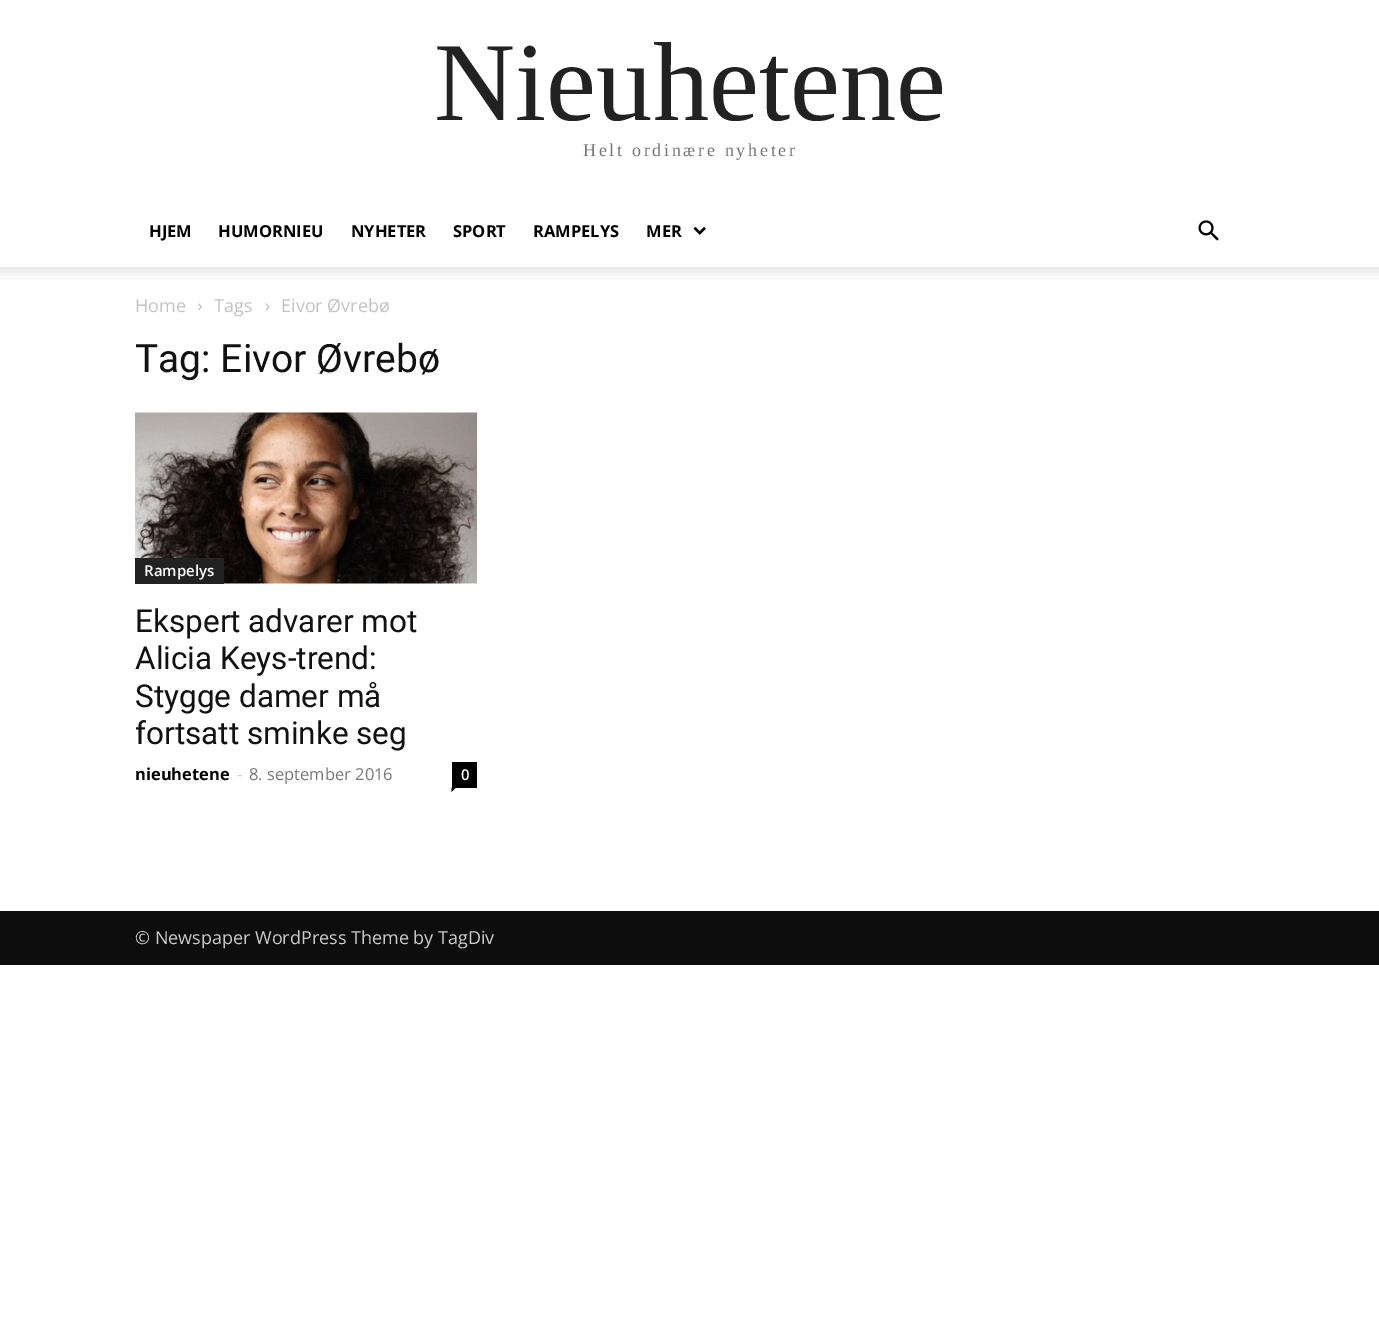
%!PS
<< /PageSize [1379 1319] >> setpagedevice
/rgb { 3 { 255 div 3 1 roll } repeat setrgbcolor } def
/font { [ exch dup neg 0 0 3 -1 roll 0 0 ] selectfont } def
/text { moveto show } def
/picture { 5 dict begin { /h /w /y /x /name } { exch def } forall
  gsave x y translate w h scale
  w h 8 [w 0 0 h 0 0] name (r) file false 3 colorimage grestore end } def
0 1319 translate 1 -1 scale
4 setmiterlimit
255 255 255 rgb
0 0 1379 1319 rectfill
(img_01.rgb) 693 227 13 8 picture
(img_02.rgb) 1198 220 21 21 picture
(img_03.rgb) 0 267 1379 13 picture
(img_04.rgb) 198 303 4 8 picture
(img_05.rgb) 265 303 5 8 picture
(img_06.rgb) 135 412 342 172 picture
34 34 34 rgb
135 558 89 26 rectfill
0 0 0 rgb
452 762 25 26 rectfill
451.5 787.5 moveto 4.5 0 rlineto -4.5 4.5 rlineto closepath fill
13 13 13 rgb
0 911 1379 54 rectfill
/LiberationSerif-Regular 112.5 font
34 34 34 rgb
(Nieuhetene) 434 120 text
/LiberationSerif-Regular 18 font
118 118 118 rgb
583 156 moveto 2.7 0 (Helt ordinære nyheter) ashow
/OpenSans-Bold 16.5 font
0 0 0 rgb
(HJEM) 149 237 text
(HUMORNIEU) 218 237 text
(NYHETER) 351 237 text
(SPORT) 453 237 text
(RAMPELYS) 533 237 text
(MER) 646 237 text
/OpenSans-Regular 18 font
195 195 195 rgb
(Home) 135 312 text
(Tags) 214 312 text
(Eivor Øvrebø) 281 312 text
/Roboto-Regular 39 font
17 17 17 rgb
(Tag: Eivor Øvrebø) 135 372 text
/OpenSans-SemiBold 15 font
255 255 255 rgb
(Rampelys) 144 576 text
/Roboto-Regular 31.5 font
17 17 17 rgb
(Ekspert advarer mot) 135 632 text
(Alicia Keys-trend:) 135 669 text
(Stygge damer må) 135 707 text
(fortsatt sminke seg) 135 744 text
/OpenSans-Bold 16.5 font
0 0 0 rgb
(nieuhetene) 135 780 text
/OpenSans-Regular 16.5 font
204 204 204 rgb
(-) 237 780 text
118 118 118 rgb
(8. september 2016) 249 780 text
/OpenSans-SemiBold 15 font
255 255 255 rgb
(0) 461 780 text
/OpenSans-Regular 18 font
204 204 204 rgb
(© Newspaper WordPress Theme by TagDiv) 135 944 text
showpage
